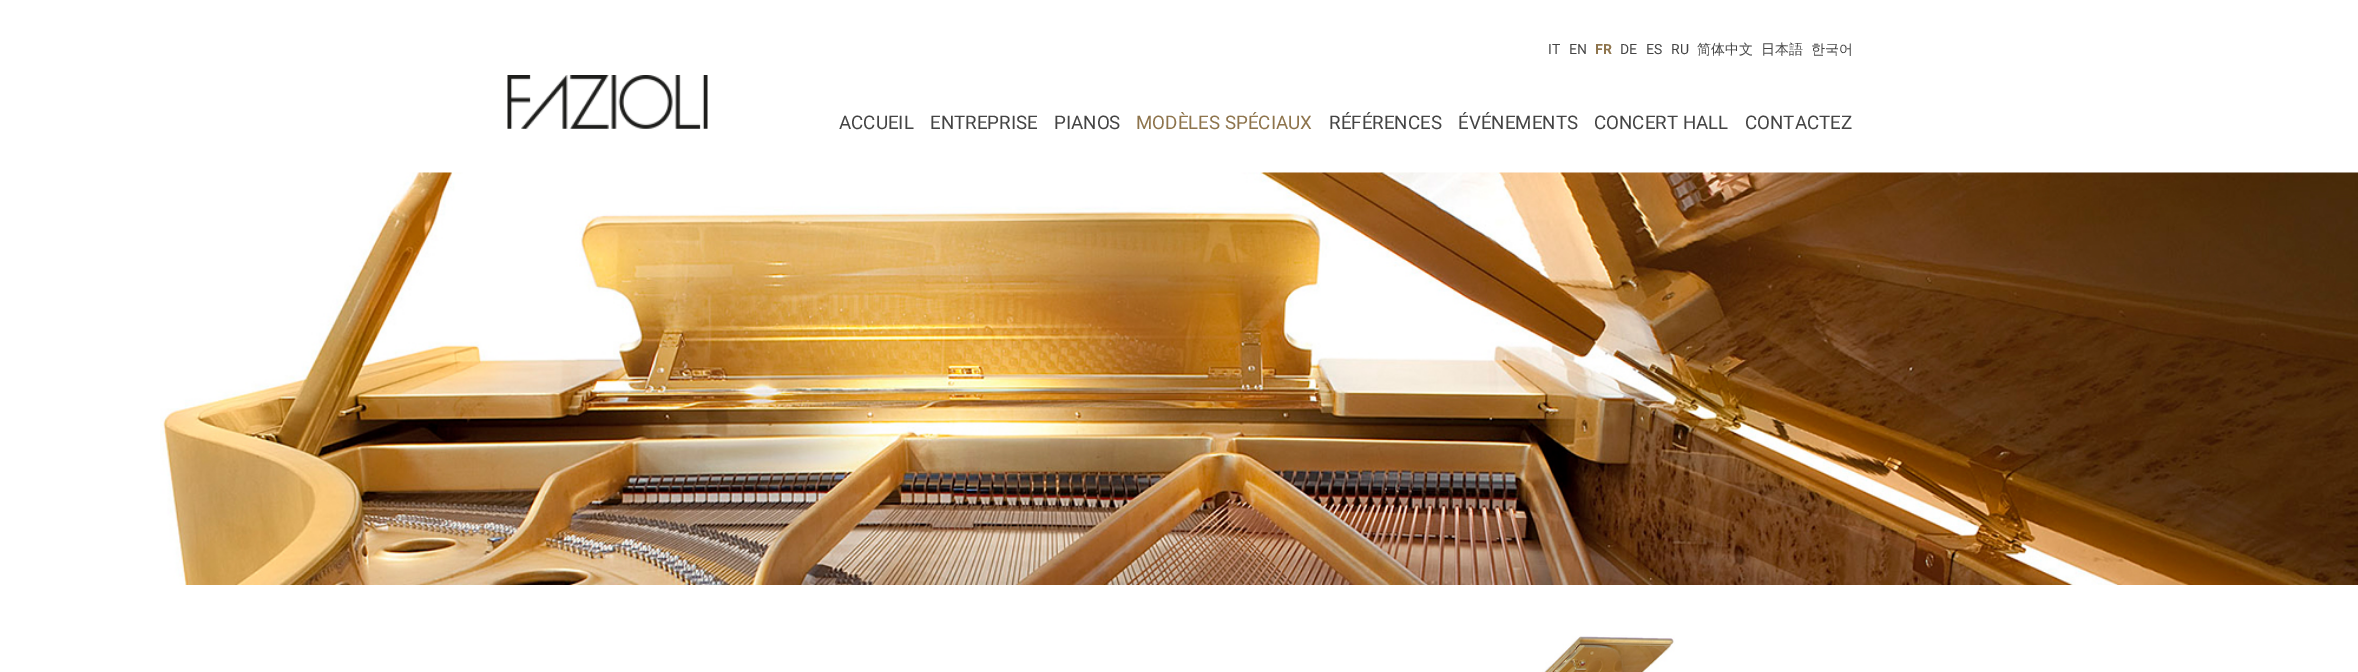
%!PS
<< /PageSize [2358 672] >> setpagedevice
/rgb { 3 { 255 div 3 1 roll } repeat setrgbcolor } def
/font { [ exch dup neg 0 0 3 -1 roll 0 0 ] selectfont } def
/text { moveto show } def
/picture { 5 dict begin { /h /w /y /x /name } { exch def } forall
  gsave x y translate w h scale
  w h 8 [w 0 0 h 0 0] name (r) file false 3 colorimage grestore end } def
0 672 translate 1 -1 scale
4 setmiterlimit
255 255 255 rgb
0 0 2358 672 rectfill
(img_01.rgb) 507 75 201 54 picture
(img_02.rgb) 160 172 2198 413 picture
(img_03.rgb) 1542 635 133 37 picture
/Roboto-Regular 14 font
68 68 68 rgb
(IT) 1548 54 text
(EN) 1569 54 text
/Roboto-Bold 14 font
142 116 76 rgb
(FR) 1595 54 text
/Roboto-Regular 14 font
68 68 68 rgb
(DE) 1620 54 text
(ES) 1646 54 text
(RU) 1671 54 text
/WenQuanYiZenHei-Medium 14 font
(简体中文) 1697 54 text
(日本語) 1761 54 text
(한국어) 1811 54 text
/Roboto-Regular 18.75 font
(ACCUEIL) 839 129 text
(ENTREPRISE) 930 129 text
(PIANOS) 1054 129 text
142 116 76 rgb
(MODÈLES SPÉCIAUX) 1136 129 text
68 68 68 rgb
(RÉFÉRENCES) 1329 129 text
(ÉVÉNEMENTS) 1458 129 text
(CONCERT HALL) 1594 129 text
(CONTACTEZ) 1745 129 text
showpage
